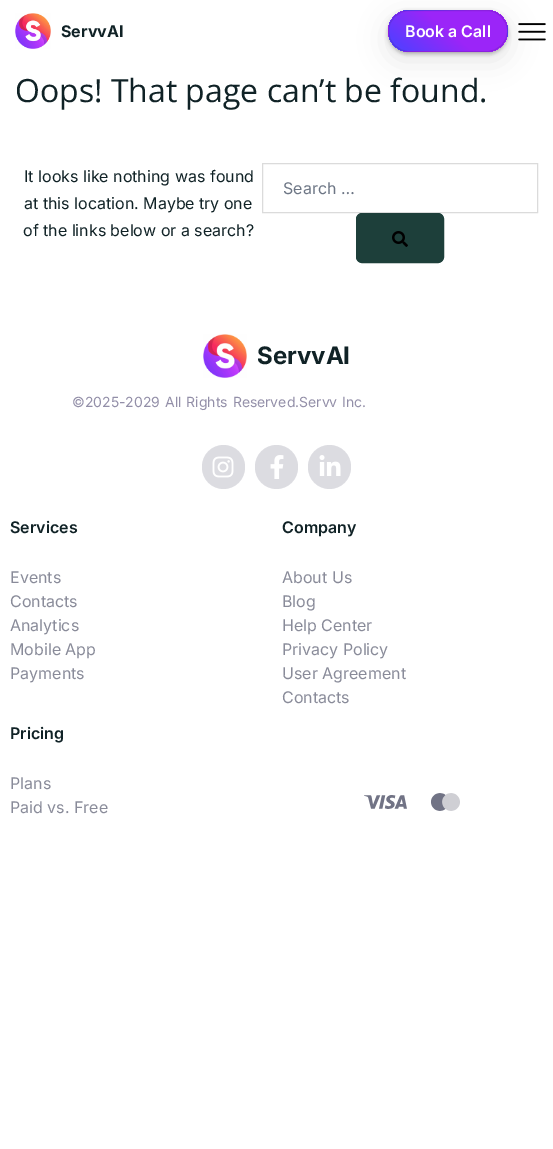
%!PS
<< /PageSize [553 1149] /PageUsesTransparency true >> setpagedevice
/rgb { 3 { 255 div 3 1 roll } repeat setrgbcolor } def
/font { [ exch dup neg 0 0 3 -1 roll 0 0 ] selectfont } def
/text { moveto show } def
/alpha { dup .setfillconstantalpha .setstrokeconstantalpha } def
/roundrect { 5 dict begin { /r /h /w /y /x } { exch def } forall
  x r add y moveto x w add y 2 copy h add r arct x w add y h add x 1 index r arct
  x y h add x y r arct x y 2 copy exch w add exch r arct closepath end } def
/shadow { 12 dict begin { /a /b /q /h /w /y /x } { exch def } forall gsave /was 0 def
  9 -2 -9 { dup b mul 4 div /e exch def 1 sub .425 mul 2.718 exch exp 1 add a .99 .min exch div /now exch def
    1 1 now sub 1 was sub div sub alpha /was now def
    w h .min e 2 mul add 0 gt { x e sub y e sub w e 2 mul add h e 2 mul add
      q e add b .6 mul add w h .min 2 div e add .min 0 .max roundrect fill } if } for grestore end } def
/picture { 5 dict begin { /h /w /y /x /name } { exch def } forall
  gsave x y translate w h scale
  w h 8 [w 0 0 h 0 0] name (r) file false 3 colorimage grestore end } def
0 .pushpdf14devicefilter
0 1149 translate 1 -1 scale
4 setmiterlimit
255 255 255 rgb
0 0 553 1149 rectfill
(img_01.rgb) 15 13 36 36 picture
0 0 0 rgb
388 12 120 42 21 2 0.25 shadow
388 18 120 42 21 14 0.1 shadow
gsave
388 10 120 42 21 roundrect clip newpath
gsave 402 10 moveto 92 0 rlineto 0 1 rlineto -92 0 rlineto closepath clip newpath
<< /ShadingType 2 /ColorSpace /DeviceRGB /Coords [414 32 482 -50] /Extend [true true] /Function << /FunctionType 3 /Domain [0 1] /Functions [<< /FunctionType 2 /Domain [0 1] /C0 [0.345 0.239 1] /C1 [0.345 0.239 1] /N 1 >> << /FunctionType 2 /Domain [0 1] /C0 [0.345 0.239 1] /C1 [0.608 0.145 0.973] /N 1 >> << /FunctionType 2 /Domain [0 1] /C0 [0.608 0.145 0.973] /C1 [0.608 0.145 0.973] /N 1 >>] /Bounds [0.1 0.5] /Encode [0 1 0 1 0 1] >> >> shfill grestore
gsave 388 24 moveto 1 0 rlineto 0 14 rlineto -1 0 rlineto closepath clip newpath
<< /ShadingType 2 /ColorSpace /DeviceRGB /Coords [296 72 364 -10] /Extend [true true] /Function << /FunctionType 3 /Domain [0 1] /Functions [<< /FunctionType 2 /Domain [0 1] /C0 [0.345 0.239 1] /C1 [0.345 0.239 1] /N 1 >> << /FunctionType 2 /Domain [0 1] /C0 [0.345 0.239 1] /C1 [0.608 0.145 0.973] /N 1 >> << /FunctionType 2 /Domain [0 1] /C0 [0.608 0.145 0.973] /C1 [0.608 0.145 0.973] /N 1 >>] /Bounds [0.1 0.5] /Encode [0 1 0 1 0 1] >> >> shfill grestore
gsave 389 11 moveto 118 0 rlineto 0 40 rlineto -118 0 rlineto closepath clip newpath
<< /ShadingType 2 /ColorSpace /DeviceRGB /Coords [414 72 482 -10] /Extend [true true] /Function << /FunctionType 3 /Domain [0 1] /Functions [<< /FunctionType 2 /Domain [0 1] /C0 [0.345 0.239 1] /C1 [0.345 0.239 1] /N 1 >> << /FunctionType 2 /Domain [0 1] /C0 [0.345 0.239 1] /C1 [0.608 0.145 0.973] /N 1 >> << /FunctionType 2 /Domain [0 1] /C0 [0.608 0.145 0.973] /C1 [0.608 0.145 0.973] /N 1 >>] /Bounds [0.1 0.5] /Encode [0 1 0 1 0 1] >> >> shfill grestore
gsave 507 24 moveto 1 0 rlineto 0 14 rlineto -1 0 rlineto closepath clip newpath
<< /ShadingType 2 /ColorSpace /DeviceRGB /Coords [532 72 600 -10] /Extend [true true] /Function << /FunctionType 3 /Domain [0 1] /Functions [<< /FunctionType 2 /Domain [0 1] /C0 [0.345 0.239 1] /C1 [0.345 0.239 1] /N 1 >> << /FunctionType 2 /Domain [0 1] /C0 [0.345 0.239 1] /C1 [0.608 0.145 0.973] /N 1 >> << /FunctionType 2 /Domain [0 1] /C0 [0.608 0.145 0.973] /C1 [0.608 0.145 0.973] /N 1 >>] /Bounds [0.1 0.5] /Encode [0 1 0 1 0 1] >> >> shfill grestore
gsave 402 51 moveto 92 0 rlineto 0 1 rlineto -92 0 rlineto closepath clip newpath
<< /ShadingType 2 /ColorSpace /DeviceRGB /Coords [414 112 482 30] /Extend [true true] /Function << /FunctionType 3 /Domain [0 1] /Functions [<< /FunctionType 2 /Domain [0 1] /C0 [0.345 0.239 1] /C1 [0.345 0.239 1] /N 1 >> << /FunctionType 2 /Domain [0 1] /C0 [0.345 0.239 1] /C1 [0.608 0.145 0.973] /N 1 >> << /FunctionType 2 /Domain [0 1] /C0 [0.608 0.145 0.973] /C1 [0.608 0.145 0.973] /N 1 >>] /Bounds [0.1 0.5] /Encode [0 1 0 1 0 1] >> >> shfill grestore
grestore
0.1 alpha
388.5 10.5 119 41 20.5 roundrect stroke
1 alpha
(img_02.rgb) 518 23 28 18 picture
219 219 219 rgb
262.5 163.5 275 49 rectstroke
29 63 58 rgb
356.5 213.5 87 49 5.5 roundrect gsave fill grestore
stroke
(img_03.rgb) 392 231 16 16 picture
(img_04.rgb) 203 334 44 44 picture
220 220 225 rgb
202 445 43 44 21.5 roundrect fill
(img_05.rgb) 212 456 22 22 picture
255 445 43 44 21.5 roundrect fill
(img_06.rgb) 270 455 14 24 picture
308 445 43 44 21.5 roundrect fill
(img_07.rgb) 319 455 22 21 picture
(img_08.rgb) 364 793 96 18 picture
/Inter-Bold 16 font
16 34 38 rgb
(ServvAI) 61 37 text
/Inter-SemiBold 16 font
255 255 255 rgb
(Book a Call) 405 37 text
/OpenSans-Regular 32 font
16 34 38 rgb
(Oops! That page can’t be found.) 15 102 text
/Inter-Regular 16 font
(It looks like nothing was found) 24 182 text
(at this location. Maybe try one) 24 209 text
(of the links below or a search?) 23 236 text
109 118 133 rgb
(Search …) 283 194 text
/Inter-Bold 24 font
16 34 38 rgb
(ServvAI) 257 364 text
/Inter-Regular 14 font
147 143 168 rgb
72 407 moveto 1 0 32 (©2025-2029 All Rights Reserved.Servv Inc.) widthshow
/Inter-SemiBold 16 font
16 34 38 rgb
(Services) 10 533 text
/Inter-Regular 16 font
137 139 153 rgb
(Events) 10 583 text
(Contacts) 10 607 text
(Analytics) 10 631 text
(Mobile App) 10 655 text
(Payments) 10 679 text
/Inter-SemiBold 16 font
16 34 38 rgb
(Company) 282 533 text
/Inter-Regular 16 font
137 139 153 rgb
(About Us) 282 583 text
(Blog) 282 607 text
(Help Center) 282 631 text
(Privacy Policy) 282 655 text
(User Agreement) 282 679 text
(Contacts) 282 703 text
/Inter-SemiBold 16 font
16 34 38 rgb
(Pricing) 10 739 text
/Inter-Regular 16 font
137 139 153 rgb
(Plans) 10 789 text
(Paid vs. Free) 10 813 text
.poppdf14devicefilter showpage
